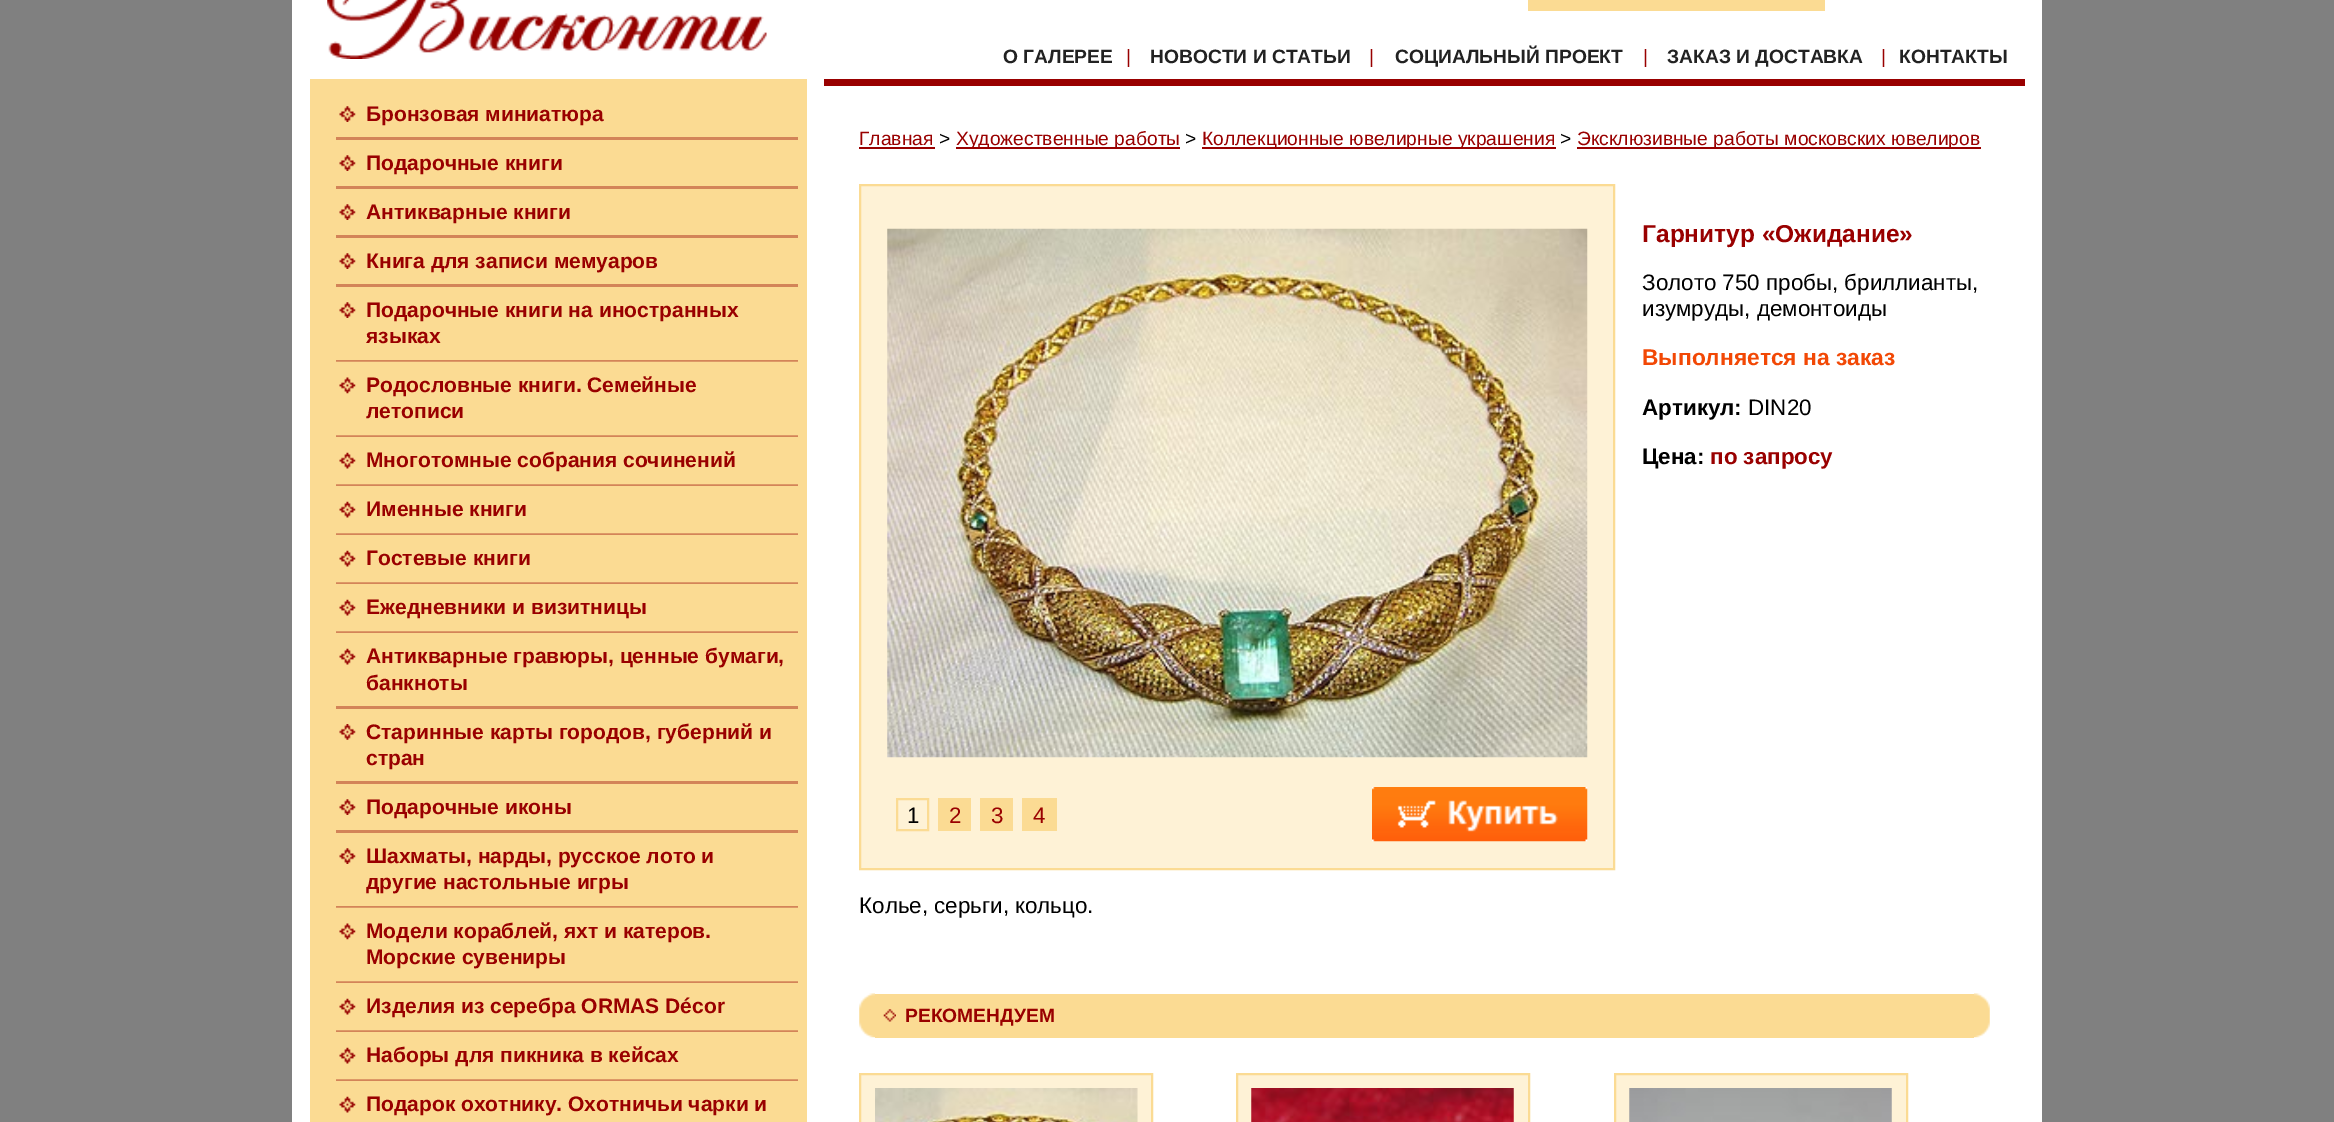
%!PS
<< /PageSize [2334 1122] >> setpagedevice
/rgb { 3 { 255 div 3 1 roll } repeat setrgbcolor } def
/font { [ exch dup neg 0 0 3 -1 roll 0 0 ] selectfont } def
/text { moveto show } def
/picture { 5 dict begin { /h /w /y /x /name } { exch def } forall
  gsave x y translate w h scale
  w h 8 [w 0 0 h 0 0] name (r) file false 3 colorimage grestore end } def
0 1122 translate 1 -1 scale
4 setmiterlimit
128 128 128 rgb
0 0 2334 1122 rectfill
255 255 255 rgb
292 0 1750 1122 rectfill
(img_01.rgb) 327 0 440 59 picture
251 219 147 rgb
1528 0 297 11 rectfill
310 79 497 1043 rectfill
(img_02.rgb) 339 106 17 16 picture
211 132 88 rgb
336 137 462 3 rectfill
(img_03.rgb) 339 155 17 16 picture
336 186 462 3 rectfill
(img_03.rgb) 339 204 17 16 picture
336 235 462 3 rectfill
(img_03.rgb) 339 253 17 16 picture
336 284 462 3 rectfill
(img_03.rgb) 339 302 17 16 picture
(img_04.rgb) 336 360 462 2 picture
(img_05.rgb) 339 377 17 17 picture
(img_06.rgb) 336 435 462 2 picture
(img_07.rgb) 339 452 17 17 picture
(img_06.rgb) 336 484 462 2 picture
(img_07.rgb) 339 501 17 17 picture
(img_06.rgb) 336 533 462 2 picture
(img_07.rgb) 339 550 17 17 picture
(img_06.rgb) 336 582 462 2 picture
(img_07.rgb) 339 599 17 17 picture
(img_06.rgb) 336 631 462 2 picture
(img_07.rgb) 339 648 17 17 picture
336 706 462 3 rectfill
(img_08.rgb) 339 724 17 16 picture
336 781 462 3 rectfill
(img_03.rgb) 339 799 17 16 picture
336 830 462 3 rectfill
(img_03.rgb) 339 848 17 16 picture
(img_04.rgb) 336 906 462 2 picture
(img_05.rgb) 339 923 17 17 picture
(img_06.rgb) 336 981 462 2 picture
(img_07.rgb) 339 998 17 17 picture
(img_06.rgb) 336 1030 462 2 picture
(img_07.rgb) 339 1047 17 17 picture
(img_06.rgb) 336 1079 462 2 picture
(img_07.rgb) 339 1096 17 17 picture
153 0 0 rgb
824 79 1201 7 rectfill
859 147 76 2 rectfill
956 147 224 2 rectfill
1202 147 354 2 rectfill
1577 147 404 2 rectfill
254 242 214 rgb
860 185 moveto 754 0 rlineto 0 684 rlineto -754 0 rlineto closepath gsave fill grestore
251 219 147 rgb
2 setlinewidth
stroke
(img_09.rgb) 887 228 701 530 picture
897 799 31 31 rectstroke
938 798 33 33 rectfill
980 798 33 33 rectfill
1022 798 35 33 rectfill
(img_10.rgb) 1372 787 216 55 picture
(img_11.rgb) 859 993 16 45 picture
875 994 1099 44 rectfill
(img_12.rgb) 883 1009 13 13 picture
(img_13.rgb) 1974 993 16 45 picture
254 242 214 rgb
860 1074 moveto 292 0 rlineto 0 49 rlineto -292 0 rlineto closepath gsave fill grestore
251 219 147 rgb
stroke
(img_14.rgb) 875 1088 263 34 picture
254 242 214 rgb
1237 1074 moveto 292 0 rlineto 0 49 rlineto -292 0 rlineto closepath gsave fill grestore
251 219 147 rgb
stroke
(img_15.rgb) 1251 1088 263 34 picture
254 242 214 rgb
1615 1074 moveto 292 0 rlineto 0 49 rlineto -292 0 rlineto closepath gsave fill grestore
251 219 147 rgb
stroke
(img_16.rgb) 1629 1088 263 34 picture
/LiberationSans-Bold 19.25 font
34 34 34 rgb
(О ГАЛЕРЕЕ) 1003 63 text
/LiberationSans-Regular 19.25 font
153 0 0 rgb
(|) 1126 63 text
/LiberationSans-Bold 19.25 font
34 34 34 rgb
(НОВОСТИ И СТАТЬИ) 1150 63 text
/LiberationSans-Regular 19.25 font
153 0 0 rgb
(|) 1369 63 text
/LiberationSans-Bold 19.25 font
34 34 34 rgb
(СОЦИАЛЬНЫЙ ПРОЕКТ) 1395 63 text
/LiberationSans-Regular 19.25 font
153 0 0 rgb
(|) 1643 63 text
/LiberationSans-Bold 19.25 font
34 34 34 rgb
(ЗАКАЗ И ДОСТАВКА) 1667 63 text
/LiberationSans-Regular 19.25 font
153 0 0 rgb
(|) 1881 63 text
/LiberationSans-Bold 19.25 font
34 34 34 rgb
(КОНТАКТЫ) 1899 63 text
/LiberationSans-Bold 21 font
153 0 0 rgb
(Бронзовая миниатюра) 366 121 text
(Подарочные книги) 366 170 text
(Антикварные книги) 366 219 text
(Книга для записи мемуаров) 366 268 text
(Подарочные книги на иностранных) 366 317 text
(языках) 366 343 text
(Родословные книги. Семейные) 366 392 text
(летописи) 366 418 text
(Многотомные собрания сочинений) 366 467 text
(Именные книги) 366 516 text
(Гостевые книги) 366 565 text
(Ежедневники и визитницы) 366 614 text
(Антикварные гравюры, ценные бумаги,) 366 663 text
(банкноты) 366 690 text
(Старинные карты городов, губерний и) 366 739 text
(стран) 366 765 text
(Подарочные иконы) 366 814 text
(Шахматы, нарды, русское лото и) 366 863 text
(другие настольные игры) 366 889 text
(Модели кораблей, яхт и катеров.) 366 938 text
(Морские сувениры) 366 964 text
(Изделия из серебра ORMAS Décor) 366 1013 text
(Наборы для пикника в кейсах) 366 1062 text
(Подарок охотнику. Охотничьи чарки и) 366 1111 text
/LiberationSans-Regular 19.25 font
(Главная) 859 145 text
0 0 0 rgb
(>) 939 145 text
153 0 0 rgb
(Художественные работы) 956 145 text
0 0 0 rgb
(>) 1185 145 text
153 0 0 rgb
(Коллекционные ювелирные украшения) 1202 145 text
0 0 0 rgb
(>) 1560 145 text
153 0 0 rgb
(Эксклюзивные работы московских ювелиров) 1577 145 text
/LiberationSans-Bold 24.5 font
(Гарнитур «Ожидание») 1642 242 text
/LiberationSans-Regular 22.4 font
0 0 0 rgb
(Золото 750 пробы, бриллианты,) 1642 290 text
(изумруды, демонтоиды) 1642 316 text
/LiberationSans-Bold 22.75 font
242 72 5 rgb
(Выполняется на заказ) 1642 365 text
/LiberationSans-Bold 22.4 font
0 0 0 rgb
(Артикул:) 1642 415 text
/LiberationSans-Regular 22.4 font
(DIN20) 1748 415 text
/LiberationSans-Bold 22.4 font
(Цена:) 1642 464 text
153 0 0 rgb
(по запросу) 1710 464 text
/LiberationSans-Regular 22.4 font
0 0 0 rgb
(1) 907 823 text
153 0 0 rgb
(2) 949 823 text
(3) 991 823 text
(4) 1033 823 text
0 0 0 rgb
(Колье, серьги, кольцо.) 859 913 text
/LiberationSans-Bold 19.25 font
153 0 0 rgb
(РЕКОМЕНДУЕМ) 905 1022 text
showpage
